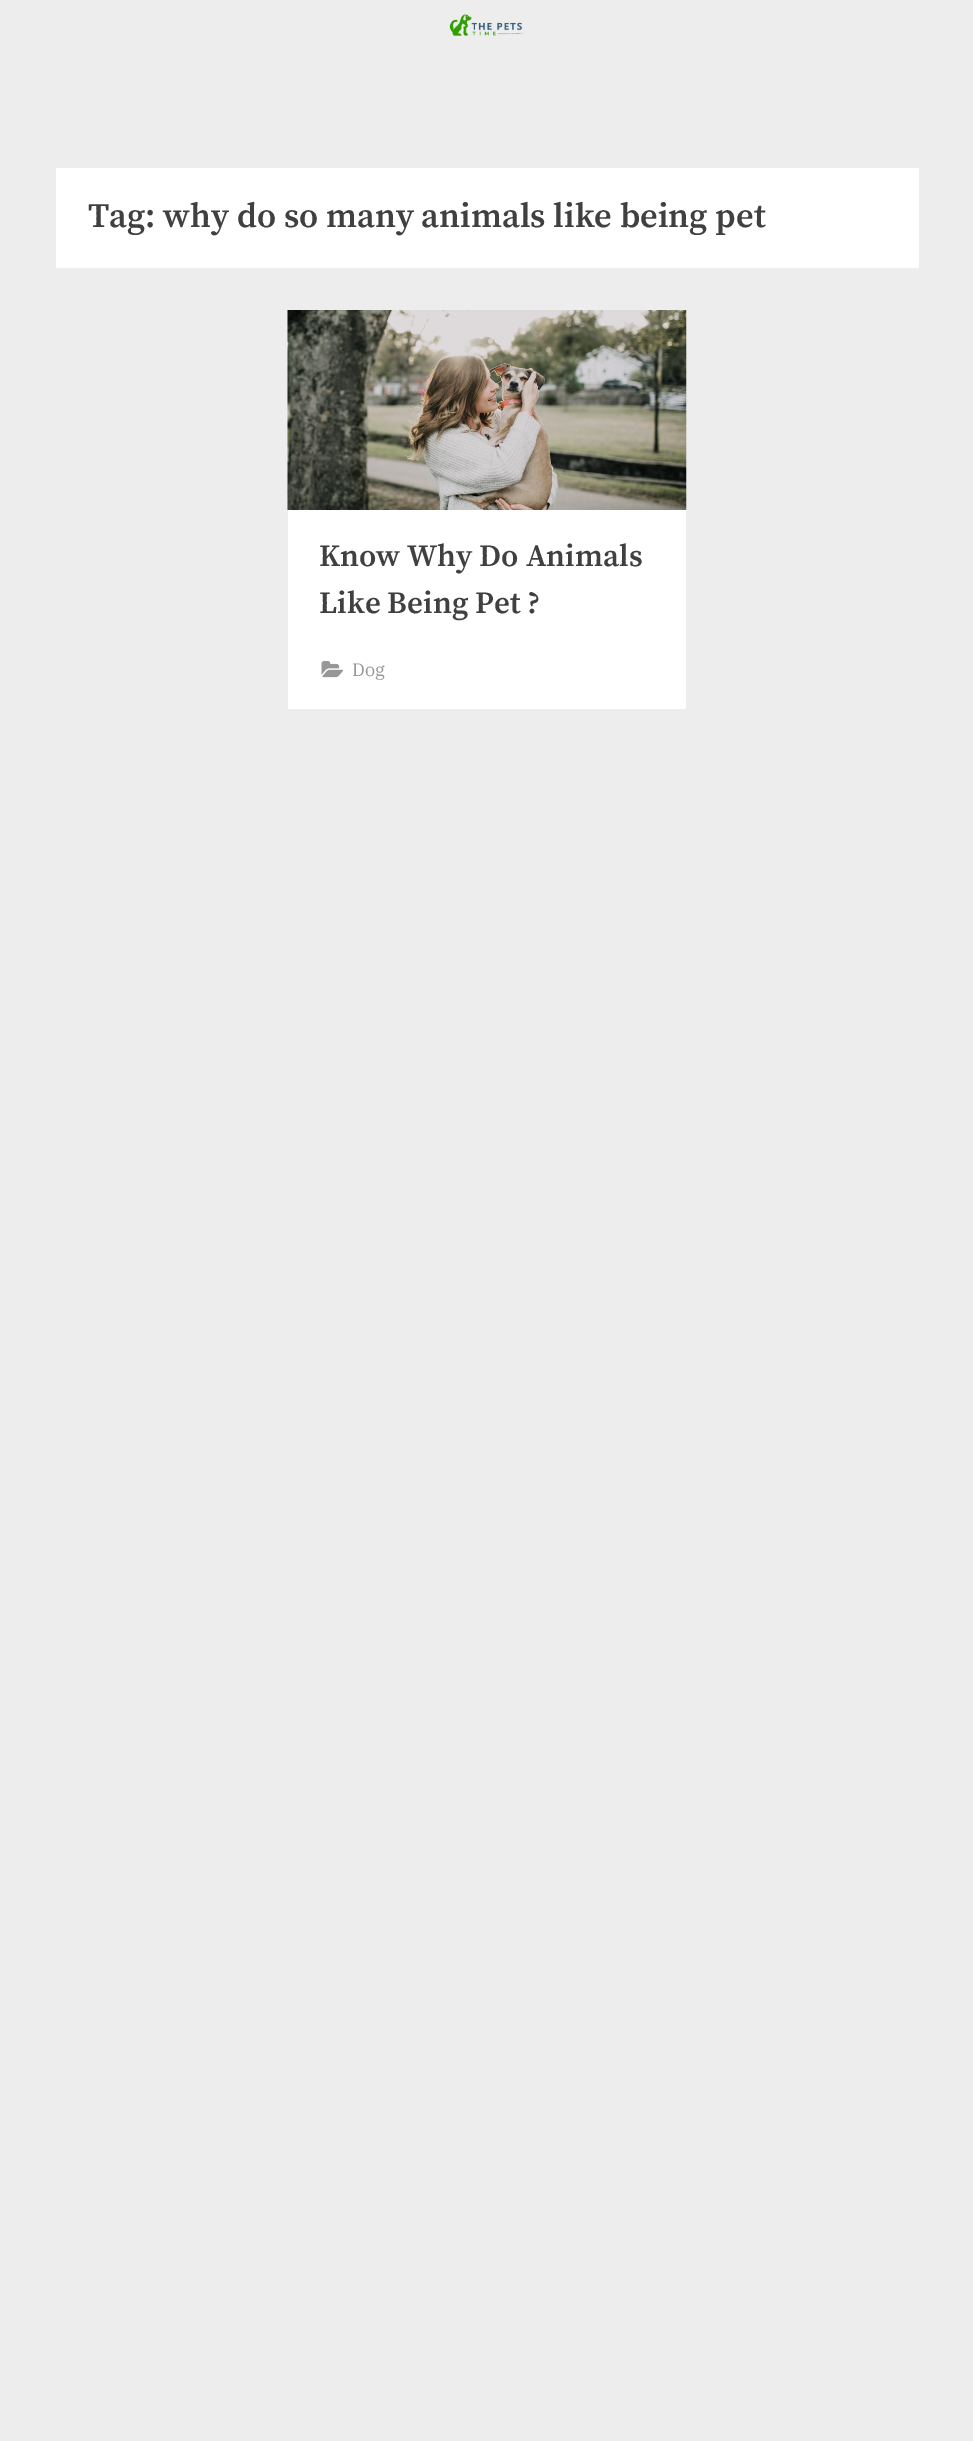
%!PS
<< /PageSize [973 2441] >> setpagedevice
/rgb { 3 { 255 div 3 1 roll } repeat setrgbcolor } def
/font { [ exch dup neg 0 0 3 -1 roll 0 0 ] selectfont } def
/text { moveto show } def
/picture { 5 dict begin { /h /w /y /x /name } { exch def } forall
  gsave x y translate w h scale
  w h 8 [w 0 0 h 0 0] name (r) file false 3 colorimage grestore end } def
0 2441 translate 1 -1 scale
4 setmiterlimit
237 237 237 rgb
0 0 973 2441 rectfill
(img_01.rgb) 449 14 75 22 picture
255 255 255 rgb
56 168 863 100 rectfill
288 510 398 199 rectfill
(img_02.rgb) 287 310 400 200 picture
(img_03.rgb) 321 661 22 17 picture
/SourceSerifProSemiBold-SemiBold 34.4 font
64 64 64 rgb
(Tag: why do so many animals like being pet) 88 227 text
/SourceSerifProSemiBold-SemiBold 31 font
(Know Why Do Animals) 319 566 text
(Like Being Pet ?) 319 613 text
/IBMPlexSerif-Regular 18 font
151 151 151 rgb
(Dog) 352 676 text
showpage
